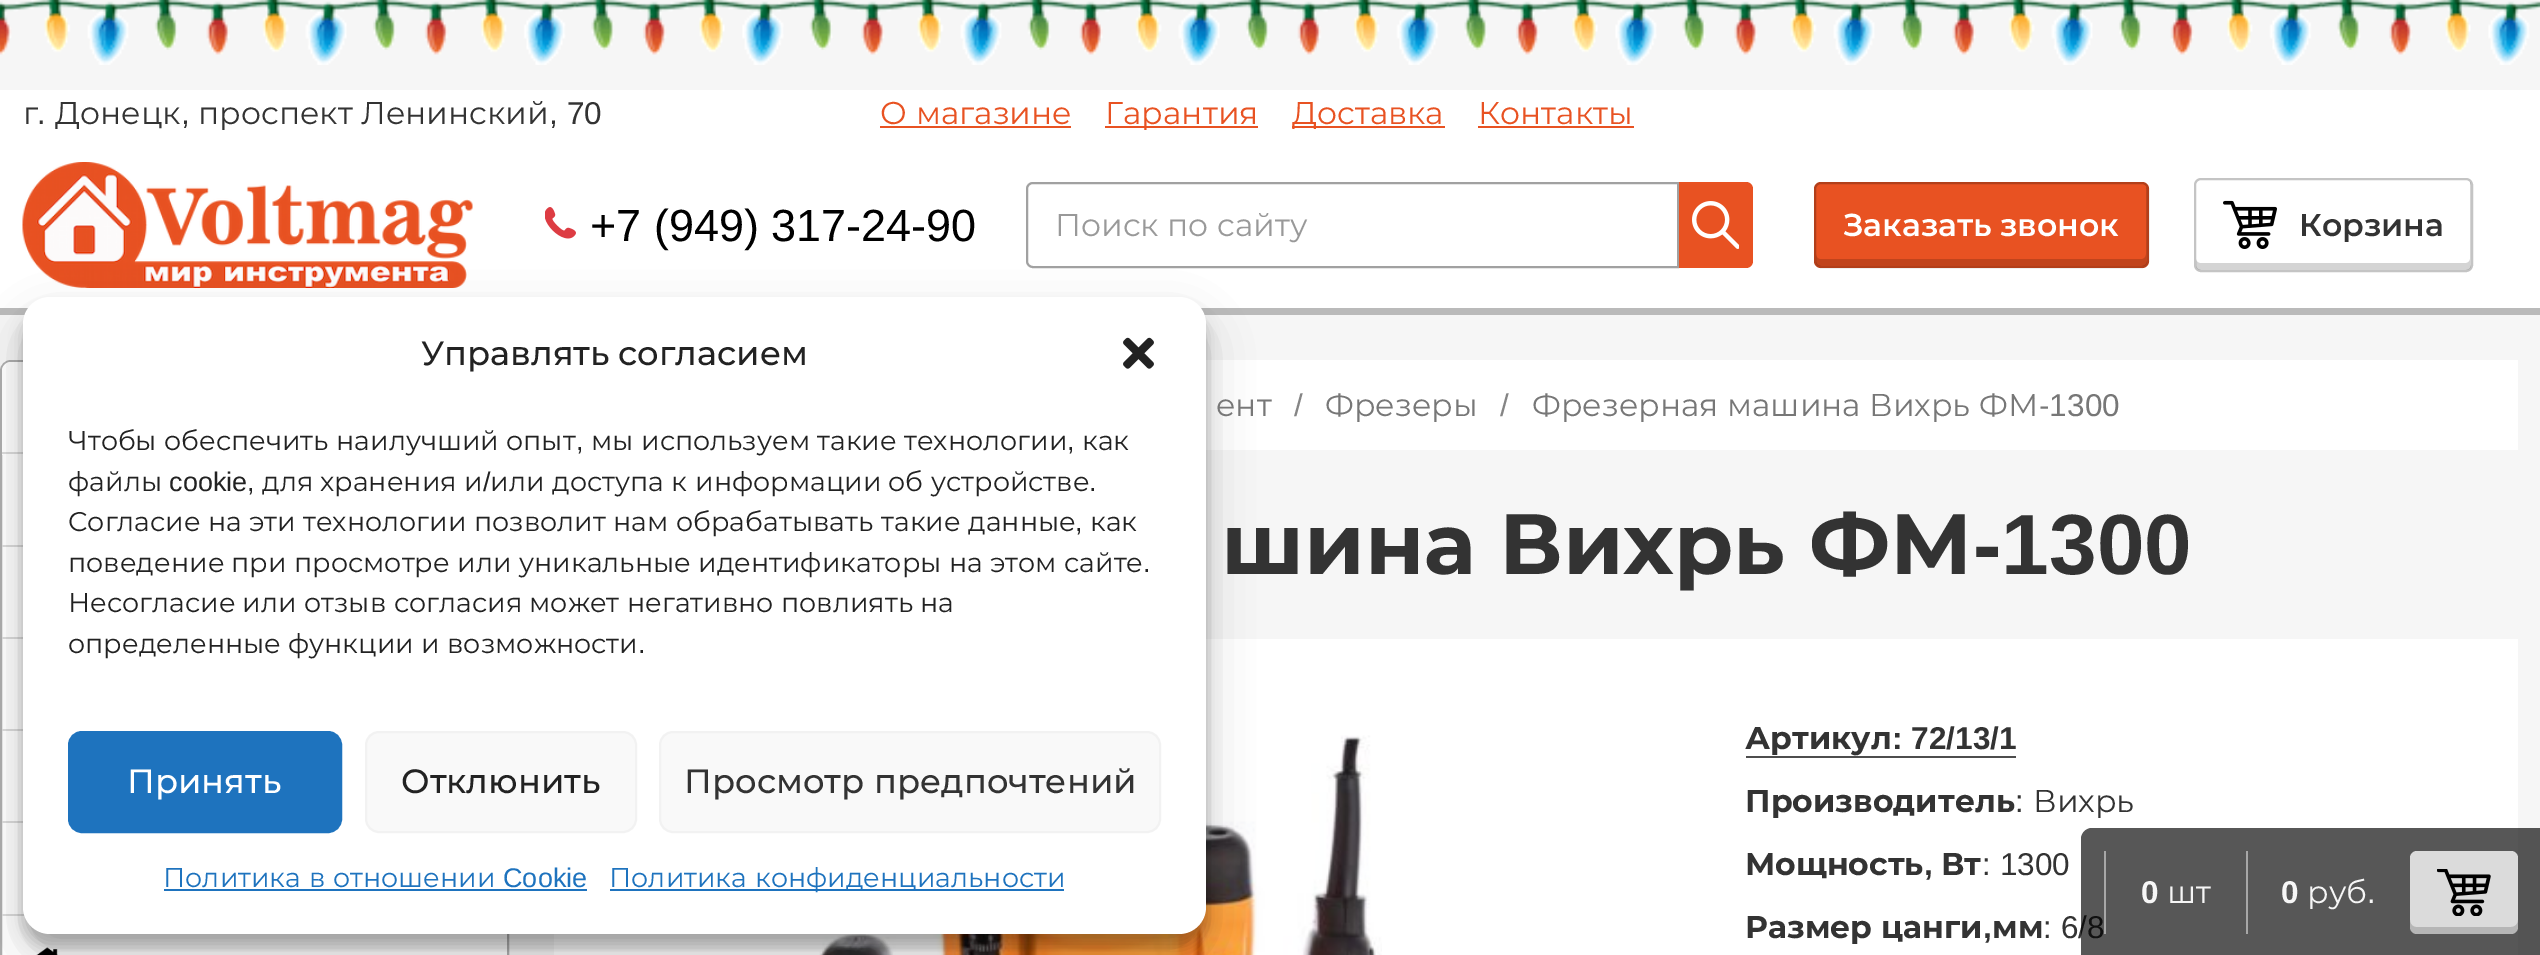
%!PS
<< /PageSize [2540 955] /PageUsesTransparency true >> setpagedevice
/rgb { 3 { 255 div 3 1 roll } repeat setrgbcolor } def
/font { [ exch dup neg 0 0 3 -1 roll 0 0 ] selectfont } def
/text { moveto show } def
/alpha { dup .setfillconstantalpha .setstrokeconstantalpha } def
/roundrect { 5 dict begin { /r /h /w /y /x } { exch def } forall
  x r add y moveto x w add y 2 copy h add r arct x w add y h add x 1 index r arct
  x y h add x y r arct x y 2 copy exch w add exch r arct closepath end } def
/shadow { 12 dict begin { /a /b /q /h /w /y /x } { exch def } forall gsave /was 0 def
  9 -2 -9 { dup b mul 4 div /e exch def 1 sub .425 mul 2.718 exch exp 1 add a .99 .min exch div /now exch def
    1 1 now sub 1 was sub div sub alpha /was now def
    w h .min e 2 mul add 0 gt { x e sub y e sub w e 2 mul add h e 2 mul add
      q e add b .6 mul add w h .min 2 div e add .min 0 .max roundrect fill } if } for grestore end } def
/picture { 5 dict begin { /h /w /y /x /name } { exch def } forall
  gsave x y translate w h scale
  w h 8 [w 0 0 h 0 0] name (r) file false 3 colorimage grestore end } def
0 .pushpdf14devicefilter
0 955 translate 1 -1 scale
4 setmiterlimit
246 246 246 rgb
0 0 2540 955 rectfill
(img_01.rgb) 0 0 2540 65 picture
255 255 255 rgb
0 90 2540 218 rectfill
186 186 186 rgb
0 308 2540 7 rectfill
232 82 34 rgb
880 126 191 2 rectfill
1105 126 153 2 rectfill
1292 126 153 2 rectfill
1478 126 156 2 rectfill
(img_02.rgb) 22 162 451 126 picture
(img_03.rgb) 545 207 31 32 picture
161 161 161 rgb
2 setlinewidth
1033 183 moveto 645 0 rlineto 0 84 rlineto -645 0 rlineto -3.5 0 -6 -2.5 -6 -6 rcurveto 0 -72 rlineto 0 -3.5 2.5 -6 6 -6 rcurveto closepath stroke
232 82 34 rgb
1679 182 moveto 67 0 rlineto 4 0 7 3 7 7 rcurveto 0 72 rlineto 0 4 -3 7 -7 7 rcurveto -67 0 rlineto closepath fill
(img_04.rgb) 1692 201 47 48 picture
1814 182 335 86 7 roundrect fill
193 68 28 rgb
1816 254 moveto 0 7 rlineto 0 3 2 5 5 5 rcurveto 321 0 rlineto 3 0 5 -2 5 -5 rcurveto 0 -71 rlineto 0 -1 0 -2 -1 -3 rcurveto 0 67 rlineto 0 3 -2 5 -4 5 rcurveto -322 0 rlineto -2 0 -4 -2 -4 -5 rcurveto closepath fill
0.23 alpha
0 0 0 rgb
1815 183 333 84 6 roundrect stroke
1 alpha
212 212 212 rgb
2196 259 moveto 0 6 rlineto 0 3 2 5 5 5 rcurveto 265 0 rlineto 3 0 5 -2 5 -5 rcurveto 0 -80 rlineto 0 -1 0 -2 -1 -3 rcurveto 0 77 rlineto 0 2 -2 4 -4 4 rcurveto -266 0 rlineto -2 0 -4 -2 -4 -4 rcurveto closepath fill
0.23 alpha
0 0 0 rgb
2195 179 277 92 6 roundrect stroke
1 alpha
(img_05.rgb) 2223 200 54 49 picture
255 255 255 rgb
0 360 509 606 11 roundrect fill
0.32 alpha
0 0 0 rgb
1 361 507 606 10 roundrect stroke
1 alpha
255 255 255 rgb
11 362 moveto 486 0 rlineto 5 0 9 4 9 9 rcurveto 0 84 rlineto -504 0 rlineto 0 -84 rlineto 0 -5 4 -9 9 -9 rcurveto closepath fill
219 219 219 rgb
2 452 21 2 rectfill
2 545 21 2 rectfill
2 637 21 2 rectfill
2 729 21 2 rectfill
2 821 21 2 rectfill
2 914 23 2 rectfill
(img_07.rgb) 36 947 22 8 picture
255 255 255 rgb
1206 360 1312 90 rectfill
554 639 1964 316 rectfill
(img_08.rgb) 819 735 563 220 picture
0 0 0 rgb
23 311 1183 636 27 7 0.23 shadow
23 320 1183 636 27 22.5 0.19 shadow
255 255 255 rgb
23 297 1183 637 27 roundrect fill
(img_06.rgb) 1123 337 31 32 picture
30 115 190 rgb
69 732 272 100 13 roundrect gsave fill grestore
stroke
249 249 249 rgb
366 732 270 100 13 roundrect gsave fill grestore
242 242 242 rgb
stroke
249 249 249 rgb
660 732 500 100 13 roundrect gsave fill grestore
242 242 242 rgb
stroke
30 115 190 rgb
164 889 423 2 rectfill
610 889 454 2 rectfill
77 77 77 rgb
1746 756 270 2 rectfill
/Montserrat-Regular 31.5 font
51 51 51 rgb
(г) 23 124 text
/LiberationSans-Regular 31.5 font
(.) 37 124 text
/Montserrat-Regular 31.5 font
(Донецк) 55 124 text
/LiberationSans-Regular 31.5 font
(,) 181 124 text
/Montserrat-Regular 31.5 font
(проспект) 198 124 text
(Ленинский) 361 124 text
/LiberationSans-Regular 31.5 font
(, 70) 549 124 text
/Montserrat-Regular 31.5 font
232 82 34 rgb
(О) 880 124 text
(магазине) 916 124 text
(Гарантия) 1105 124 text
(Доставка) 1292 124 text
(Контакты) 1478 124 text
/LiberationSans-Regular 45 font
0 0 0 rgb
(+7 \(949\) 317-24-90) 590 241 text
/Montserrat-Regular 31.5 font
153 153 153 rgb
(Поиск) 1055 236 text
(по) 1167 236 text
(сайту) 1217 236 text
/Montserrat-SemiBold 31.5 font
255 255 255 rgb
(Заказать) 1843 236 text
(звонок) 2000 236 text
51 51 51 rgb
(Корзина) 2299 236 text
/Montserrat-Medium 33.75 font
34 34 34 rgb
(Управлять) 421 365 text
(согласием) 618 365 text
/Montserrat-Regular 27 font
(Чтобы) 68 450 text
(обеспечить) 164 450 text
(наилучший) 336 450 text
(опыт) 506 450 text
/LiberationSans-Regular 27 font
(,) 576 450 text
/Montserrat-Regular 27 font
(мы) 591 450 text
(используем) 641 450 text
(такие) 817 450 text
(технологии) 904 450 text
/LiberationSans-Regular 27 font
(,) 1067 450 text
/Montserrat-Regular 27 font
(как) 1082 450 text
(файлы) 68 491 text
/LiberationSans-Regular 27 font
(cookie,) 169 491 text
/Montserrat-Regular 27 font
(для) 262 491 text
(хранения) 320 491 text
(и) 464 491 text
/LiberationSans-Regular 27 font
(/) 483 491 text
/Montserrat-Regular 27 font
(или) 490 491 text
(доступа) 552 491 text
(к) 671 491 text
(информации) 695 491 text
(об) 888 491 text
(устройстве) 931 491 text
/LiberationSans-Regular 27 font
(.) 1089 491 text
/Montserrat-Regular 27 font
(Согласие) 68 531 text
(на) 208 531 text
(эти) 249 531 text
(технологии) 303 531 text
(позволит) 474 531 text
(нам) 613 531 text
(обрабатывать) 676 531 text
(такие) 881 531 text
(данные) 968 531 text
/LiberationSans-Regular 27 font
(,) 1075 531 text
/Montserrat-Regular 27 font
(как) 1090 531 text
(поведение) 68 572 text
(при) 231 572 text
(просмотре) 294 572 text
(или) 457 572 text
(уникальные) 519 572 text
(идентификаторы) 698 572 text
(на) 949 572 text
(этом) 990 572 text
(сайте) 1064 572 text
/LiberationSans-Regular 27 font
(.) 1143 572 text
/Montserrat-Regular 27 font
(Несогласие) 68 612 text
(или) 242 612 text
(отзыв) 304 612 text
(согласия) 394 612 text
(может) 529 612 text
(негативно) 627 612 text
(повлиять) 781 612 text
(на) 920 612 text
(определенные) 68 653 text
(функции) 288 653 text
(и) 421 653 text
(возможности) 447 653 text
/LiberationSans-Regular 27 font
(.) 638 653 text
/Montserrat-Medium 33.75 font
255 255 255 rgb
(Принять) 127 793 text
34 34 34 rgb
(Отклюнить) 401 793 text
51 51 51 rgb
(Просмотр) 684 793 text
(предпочтений) 874 793 text
/Montserrat-Regular 27 font
30 115 190 rgb
(Политика) 163 887 text
(в) 309 887 text
(отношении) 333 887 text
/LiberationSans-Regular 27 font
(Cookie) 503 887 text
/Montserrat-Regular 27 font
(Политика) 609 887 text
(конфиденциальности) 755 887 text
/Montserrat-Regular 31.5 font
119 119 119 rgb
(ент) 1216 416 text
/LiberationSans-Regular 31.5 font
133 133 133 rgb
(/) 1294 416 text
/Montserrat-Regular 31.5 font
119 119 119 rgb
(Фрезеры) 1325 416 text
/LiberationSans-Regular 31.5 font
133 133 133 rgb
(/) 1500 416 text
/Montserrat-Regular 31.5 font
119 119 119 rgb
(Фрезерная) 1532 416 text
(машина) 1727 416 text
(Вихрь) 1869 416 text
(ФМ) 1979 416 text
/LiberationSans-Regular 31.5 font
(-1300) 2039 416 text
/Montserrat-Bold 85.5 font
51 51 51 rgb
(шина) 1221 574 text
(Вихрь) 1499 574 text
(ФМ) 1809 574 text
/LiberationSans-Bold 85.5 font
(-1300) 1973 574 text
/Montserrat-Bold 31.5 font
(Артикул) 1745 749 text
/LiberationSans-Bold 31.5 font
(: 72/13/1) 1892 749 text
/Montserrat-Bold 31.5 font
(Производитель) 1745 812 text
/LiberationSans-Regular 31.5 font
(:) 2015 812 text
/Montserrat-Regular 31.5 font
(Вихрь) 2033 812 text
/Montserrat-Bold 31.5 font
(Мощность) 1745 875 text
/LiberationSans-Bold 31.5 font
(,) 1924 875 text
/Montserrat-Bold 31.5 font
(Вт) 1941 875 text
/LiberationSans-Regular 31.5 font
(: 1300) 1982 875 text
/Montserrat-Bold 31.5 font
(Размер) 1745 938 text
(цанги) 1881 938 text
/LiberationSans-Bold 31.5 font
(,) 1983 938 text
/Montserrat-Bold 31.5 font
(мм) 1992 938 text
/LiberationSans-Regular 31.5 font
(: 6/8) 2043 938 text
0.66 alpha
0 0 0 rgb
2092 828 moveto 448 0 rlineto 0 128 rlineto -459 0 rlineto 0 -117 rlineto 0 -6 5 -11 11 -11 rcurveto closepath fill
1 alpha
167 167 167 rgb
2104 851 2 83 rectfill
/LiberationSans-Bold 31.5 font
246 246 246 rgb
(0) 2141 903 text
/Montserrat-Regular 31.5 font
(шт) 2167 903 text
167 167 167 rgb
2246 851 2 83 rectfill
/LiberationSans-Bold 31.5 font
246 246 246 rgb
(0) 2281 903 text
/Montserrat-Regular 31.5 font
(руб) 2307 903 text
/LiberationSans-Regular 31.5 font
(.) 2367 903 text
219 219 219 rgb
2410 851 108 83 7 roundrect fill
0.17 alpha
0 0 0 rgb
2410 920 moveto 0 7 rlineto 0 4 3 7 7 7 rcurveto 94 0 rlineto 4 0 7 -3 7 -7 rcurveto 0 -7 rlineto 0 4 -3 7 -7 7 rcurveto -95 0 rlineto -3 0 -6 -3 -6 -7 rcurveto closepath fill
1 alpha
(img_09.rgb) 2437 869 54 47 picture
.poppdf14devicefilter showpage
